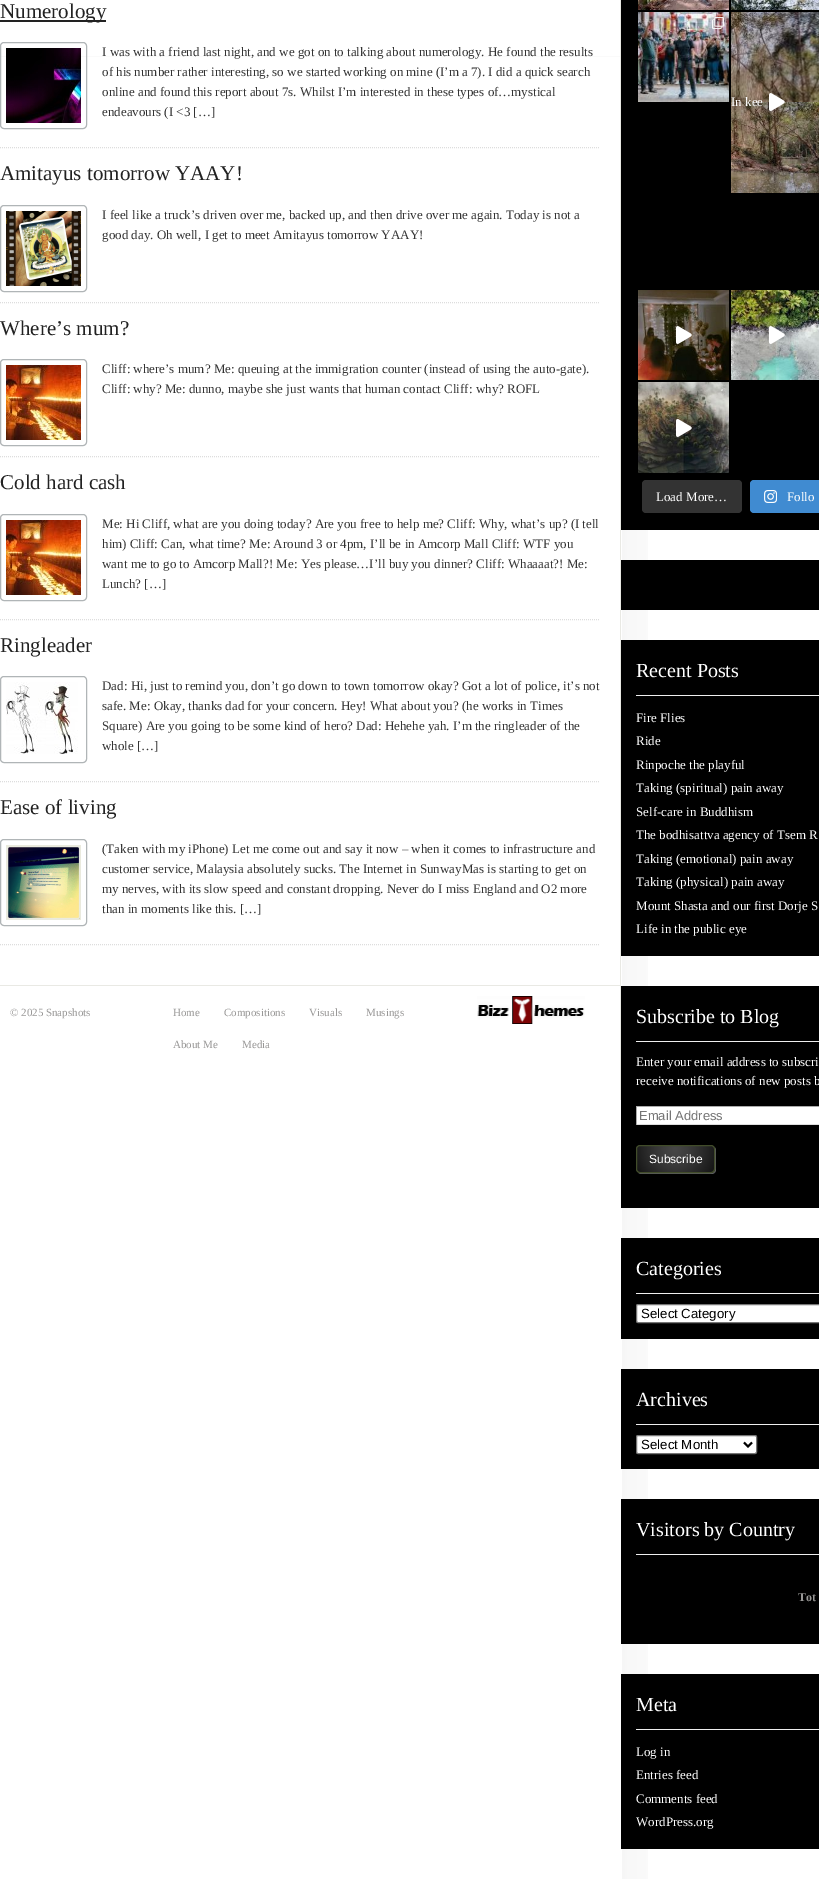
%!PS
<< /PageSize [819 1879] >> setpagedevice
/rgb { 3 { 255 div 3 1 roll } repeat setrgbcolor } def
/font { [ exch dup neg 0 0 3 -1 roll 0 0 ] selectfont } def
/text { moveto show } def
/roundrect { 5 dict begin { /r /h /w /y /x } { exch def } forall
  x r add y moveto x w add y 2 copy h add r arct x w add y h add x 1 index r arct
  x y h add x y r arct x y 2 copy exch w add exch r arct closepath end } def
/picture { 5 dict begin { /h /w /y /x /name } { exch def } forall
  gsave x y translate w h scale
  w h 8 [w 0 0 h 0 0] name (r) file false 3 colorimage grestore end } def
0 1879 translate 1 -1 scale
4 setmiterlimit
255 255 255 rgb
0 0 819 1879 rectfill
233 233 228 rgb
620 0 1 1100 rectfill
250 250 250 rgb
0 56 620 1 rectfill
233 233 228 rgb
0 985 620 1 rectfill
34 34 34 rgb
0 20 106 2 rectfill
176 181 183 rgb
0.5 42.5 86 86 3.5 roundrect stroke
(img_01.rgb) 6 48 75 75 picture
221 221 221 rgb
[1 1] 0 setdash
0 147.5 moveto 600 0 rlineto stroke
176 181 183 rgb
[] 0 setdash
0.5 205.5 86 86 3.5 roundrect stroke
(img_02.rgb) 6 211 75 75 picture
221 221 221 rgb
[1 1] 0 setdash
0 302.5 moveto 600 0 rlineto stroke
176 181 183 rgb
[] 0 setdash
0.5 359.5 86 86 3.5 roundrect stroke
(img_03.rgb) 6 365 75 75 picture
221 221 221 rgb
[1 1] 0 setdash
0 456.5 moveto 600 0 rlineto stroke
176 181 183 rgb
[] 0 setdash
0.5 514.5 86 86 3.5 roundrect stroke
(img_03.rgb) 6 520 75 75 picture
221 221 221 rgb
[1 1] 0 setdash
0 619.5 moveto 600 0 rlineto stroke
176 181 183 rgb
[] 0 setdash
0.5 676.5 86 86 3.5 roundrect stroke
(img_04.rgb) 6 682 72 72 picture
221 221 221 rgb
[1 1] 0 setdash
0 781.5 moveto 600 0 rlineto stroke
176 181 183 rgb
[] 0 setdash
0.5 839.5 86 86 3.5 roundrect stroke
(img_05.rgb) 6 845 75 75 picture
221 221 221 rgb
[1 1] 0 setdash
0 944.5 moveto 600 0 rlineto stroke
(img_06.rgb) 477 996 108 28 picture
(img_07.rgb) 622 530 26 1349 picture
0 0 0 rgb
621 0 198 530 rectfill
(img_08.rgb) 638 0 91 10 picture
(img_09.rgb) 731 0 88 10 picture
(img_10.rgb) 638 12 91 90 picture
(img_11.rgb) 712 17 12 12 picture
(img_12.rgb) 731 12 88 90 picture
(img_13.rgb) 731 102 88 91 picture
(img_14.rgb) 769 93 16 18 picture
(img_15.rgb) 638 290 91 90 picture
(img_16.rgb) 676 326 16 18 picture
(img_17.rgb) 731 290 88 90 picture
(img_18.rgb) 769 326 16 18 picture
(img_19.rgb) 638 382 91 91 picture
(img_20.rgb) 676 419 16 18 picture
51 51 51 rgb
642 480 100 33 4 roundrect fill
64 139 209 rgb
750 480 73 33 4 roundrect fill
(img_21.rgb) 764 490 13 13 picture
0 0 0 rgb
621 560 198 50 rectfill
621 640 198 316 rectfill
238 238 238 rgb
636 695 183 1 rectfill
0 0 0 rgb
621 986 198 222 rectfill
238 238 238 rgb
636 1041 183 1 rectfill
255 255 255 rgb
637 1107 182 17 rectfill
170 170 170 rgb
636 1106 183 1 rectfill
221 221 221 rgb
636 1124 183 1 rectfill
170 170 170 rgb
636 1106 1 19 rectfill
93 95 96 rgb
638 1172 moveto 0 1 2 2 3 2 rcurveto 71 0 rlineto 2 0 4 -2 4 -4 rcurveto 0 -20 rlineto 0 -1 -1 -3 -2 -3 rcurveto 1 2 rlineto 0 20 rlineto 0 2 -2 4 -4 4 rcurveto -71 0 rlineto closepath fill
0 0 0 rgb
636 1145 79 28 4 roundrect fill
(img_22.rgb) 636 1146 79 27 picture
65 76 42 rgb
[] 0 setdash
636.5 1145.5 78 27 3.5 roundrect stroke
0 0 0 rgb
621 1238 198 101 rectfill
238 238 238 rgb
636 1293 183 1 rectfill
255 255 255 rgb
636.5 1304.5 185 18 1.5 roundrect gsave fill grestore
118 118 118 rgb
stroke
0 0 0 rgb
621 1369 198 100 rectfill
238 238 238 rgb
636 1424 183 1 rectfill
255 255 255 rgb
636.5 1435.5 120 18 1.5 roundrect gsave fill grestore
118 118 118 rgb
stroke
0 0 0 rgb
2 setlinewidth
744 1442.5 moveto 4 4 rlineto 4 -4 rlineto stroke
621 1499 198 145 rectfill
238 238 238 rgb
636 1554 183 1 rectfill
0 0 0 rgb
621 1674 198 175 rectfill
238 238 238 rgb
636 1729 183 1 rectfill
/LiberationSerif-Regular 21 font
34 34 34 rgb
(Numerology) 0 18 text
/LiberationSerif-Regular 13 font
51 51 51 rgb
(I was with a friend last night, and we got on to talking about numerology. He found the results) 102 56 text
(of his number rather interesting, so we started working on mine \(I’m a 7\). I did a quick search) 102 76 text
(online and found this report about 7s. Whilst I’m interested in these types of…mystical) 102 96 text
(endeavours \(I <3 […]) 102 116 text
/LiberationSerif-Regular 21 font
34 34 34 rgb
(Amitayus tomorrow YAAY!) 0 180 text
/LiberationSerif-Regular 13 font
51 51 51 rgb
(I feel like a truck’s driven over me, backed up, and then drive over me again. Today is not a) 102 219 text
(good day. Oh well, I get to meet Amitayus tomorrow YAAY!) 102 239 text
/LiberationSerif-Regular 21 font
34 34 34 rgb
(Where’s mum?) 0 335 text
/LiberationSerif-Regular 13 font
51 51 51 rgb
(Cliff: where’s mum? Me: queuing at the immigration counter \(instead of using the auto-gate\).) 102 373 text
(Cliff: why? Me: dunno, maybe she just wants that human contact Cliff: why? ROFL) 102 393 text
/LiberationSerif-Regular 21 font
34 34 34 rgb
(Cold hard cash) 0 489 text
/LiberationSerif-Regular 13 font
51 51 51 rgb
(Me: Hi Cliff, what are you doing today? Are you free to help me? Cliff: Why, what’s up? \(I tell) 102 528 text
(him\) Cliff: Can, what time? Me: Around 3 or 4pm, I’ll be in Amcorp Mall Cliff: WTF you) 102 548 text
(want me to go to Amcorp Mall?! Me: Yes please…I’ll buy you dinner? Cliff: Whaaaat?! Me:) 102 568 text
(Lunch? […]) 102 588 text
/LiberationSerif-Regular 21 font
34 34 34 rgb
(Ringleader) 0 652 text
/LiberationSerif-Regular 13 font
51 51 51 rgb
(Dad: Hi, just to remind you, don’t go down to town tomorrow okay? Got a lot of police, it’s not) 102 690 text
(safe. Me: Okay, thanks dad for your concern. Hey! What about you? \(he works in Times) 102 710 text
(Square\) Are you going to be some kind of hero? Dad: Hehehe yah. I’m the ringleader of the) 102 730 text
(whole […]) 102 750 text
/LiberationSerif-Regular 21 font
34 34 34 rgb
(Ease of living) 0 814 text
/LiberationSerif-Regular 13 font
51 51 51 rgb
(\(Taken with my iPhone\) Let me come out and say it now – when it comes to infrastructure and) 102 853 text
(customer service, Malaysia absolutely sucks. The Internet in SunwayMas is starting to get on) 102 873 text
(my nerves, with its slow speed and constant dropping. Never do I miss England and O2 more) 102 893 text
(than in moments like this. […]) 102 913 text
/LiberationSerif-Regular 11 font
153 152 151 rgb
(© 2025 Snapshots) 10 1016 text
(Home) 173 1016 text
(Compositions) 224 1016 text
(Visuals) 309 1016 text
(Musings) 366 1016 text
(About Me) 173 1048 text
(Media) 242 1048 text
/LiberationSerif-Regular 13 font
255 255 255 rgb
(In kee) 731 106 text
(Load More…) 656 501 text
(Follo) 787 501 text
/LiberationSerif-Regular 20 font
(Recent Posts) 636 677 text
/LiberationSerif-Regular 13 font
(Fire Flies) 636 722 text
(Ride) 636 745 text
(Rinpoche the playful) 636 769 text
(Taking \(spiritual\) pain away) 636 792 text
(Self-care in Buddhism) 636 816 text
(The bodhisattva agency of Tsem R) 636 839 text
(Taking \(emotional\) pain away) 636 863 text
(Taking \(physical\) pain away) 636 886 text
(Mount Shasta and our first Dorje S) 636 910 text
(Life in the public eye) 636 933 text
/LiberationSerif-Regular 20 font
(Subscribe to Blog) 636 1023 text
/LiberationSerif-Regular 13 font
(Enter your email address to subscri) 636 1066 text
(receive notifications of new posts b) 636 1085 text
/LiberationSans-Regular 13 font
117 117 117 rgb
(Email Address) 639 1120 text
/LiberationSans-Regular 12 font
255 255 255 rgb
(Subscribe) 649 1163 text
/LiberationSerif-Regular 20 font
(Categories) 636 1275 text
/LiberationSans-Regular 13.25 font
0 0 0 rgb
(Select Category) 641 1318 text
/LiberationSerif-Regular 20 font
255 255 255 rgb
(Archives) 636 1406 text
/LiberationSans-Regular 13.25 font
0 0 0 rgb
(Select Month) 641 1449 text
/LiberationSerif-Regular 20 font
255 255 255 rgb
(Visitors by Country) 636 1536 text
/LiberationSerif-Bold 12 font
153 152 151 rgb
(Tot) 798 1601 text
/LiberationSerif-Regular 20 font
255 255 255 rgb
(Meta) 636 1711 text
/LiberationSerif-Regular 13 font
(Log in) 636 1756 text
(Entries feed) 636 1779 text
(Comments feed) 636 1803 text
(WordPress.org) 636 1826 text
showpage
